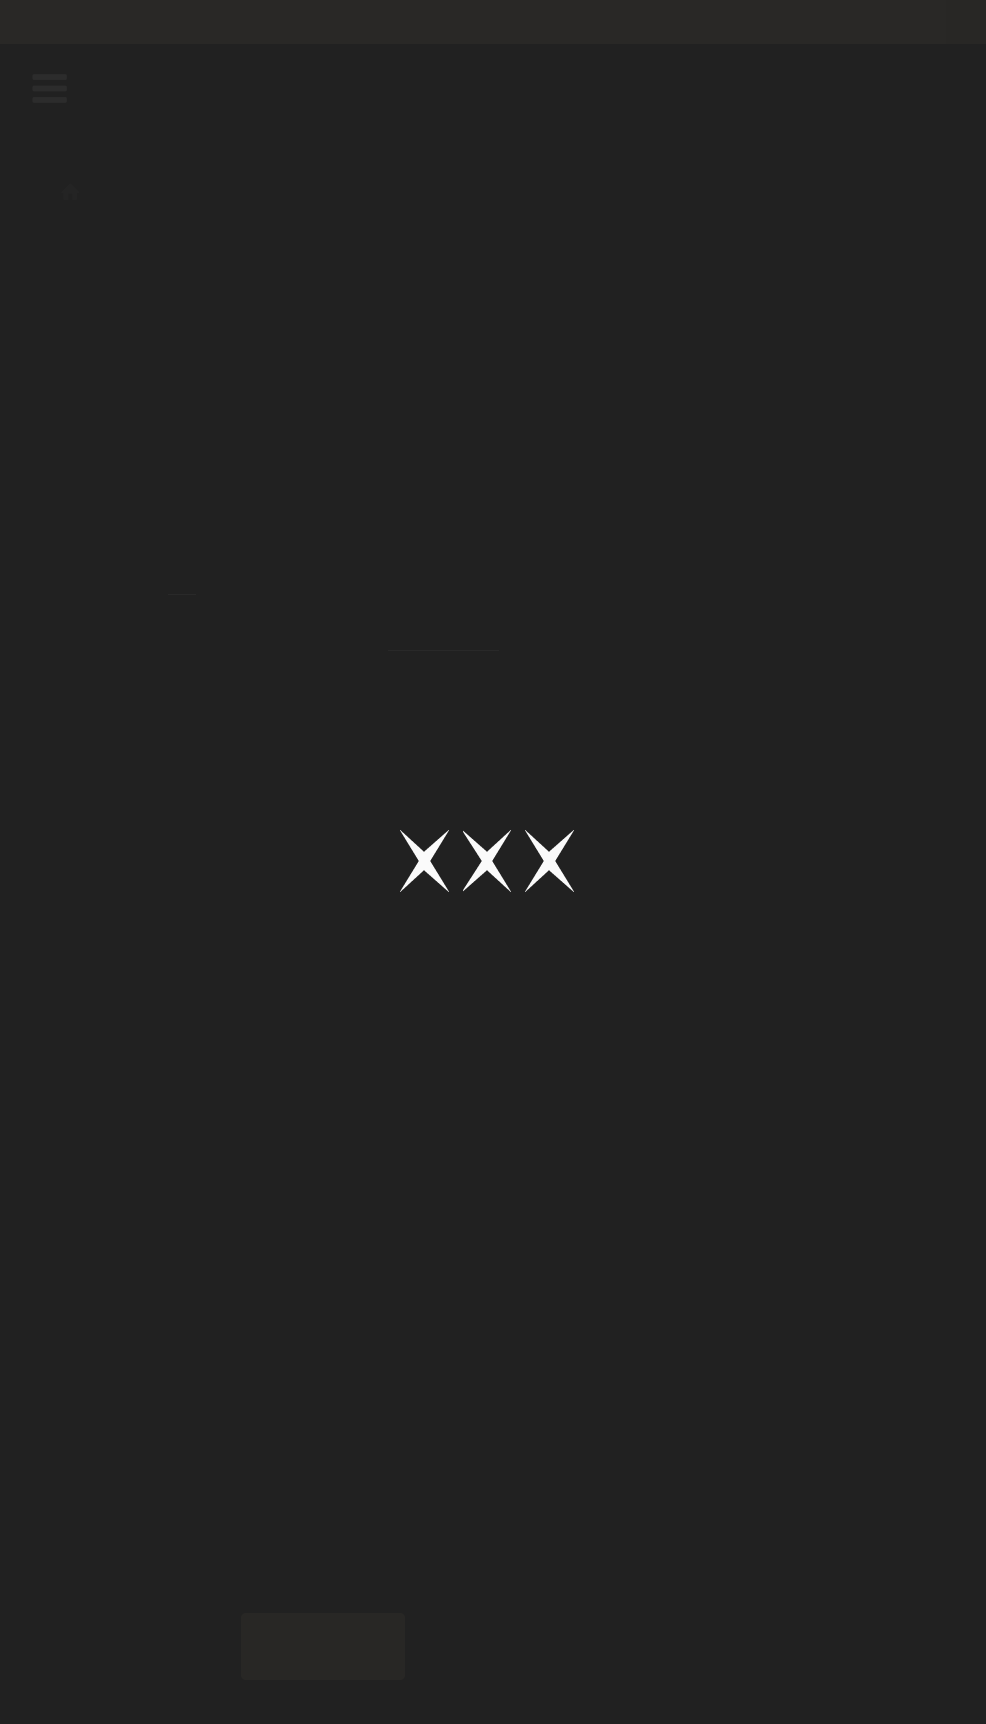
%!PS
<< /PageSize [986 1724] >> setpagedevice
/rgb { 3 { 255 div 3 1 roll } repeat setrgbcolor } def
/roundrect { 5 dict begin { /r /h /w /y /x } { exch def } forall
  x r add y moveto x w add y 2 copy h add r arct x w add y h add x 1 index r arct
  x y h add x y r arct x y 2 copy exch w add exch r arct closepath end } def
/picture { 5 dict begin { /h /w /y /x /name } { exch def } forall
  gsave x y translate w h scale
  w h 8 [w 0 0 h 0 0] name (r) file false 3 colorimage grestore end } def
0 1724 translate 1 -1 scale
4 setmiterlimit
33 33 33 rgb
0 0 986 1724 rectfill
41 40 38 rgb
0 0 946 44 rectfill
40 39 37 rgb
946 0 40 44 rectfill
(img_01.rgb) 32 74 35 29 picture
(img_02.rgb) 61 183 19 17 picture
41 41 41 rgb
168 594 28 1 rectfill
388 650 111 1 rectfill
40 39 37 rgb
241 1613 164 67 5 roundrect fill
250 250 250 rgb
449 830 moveto -25 22 rlineto -24 -22 rlineto 19 31 rlineto -19 31 rlineto 24 -22 rlineto 25 22 rlineto -19 -31 rlineto closepath fill
gsave
463 830 62 63 rectclip
511 830 moveto -24 22 rlineto -25 -22 rlineto 20 31 rlineto -20 31 rlineto 25 -22 rlineto 24 22 rlineto -19 -31 rlineto closepath fill
grestore
574 830 moveto -25 22 rlineto -24 -22 rlineto 19 31 rlineto -19 31 rlineto 24 -22 rlineto 25 22 rlineto -19 -31 rlineto closepath fill
showpage
